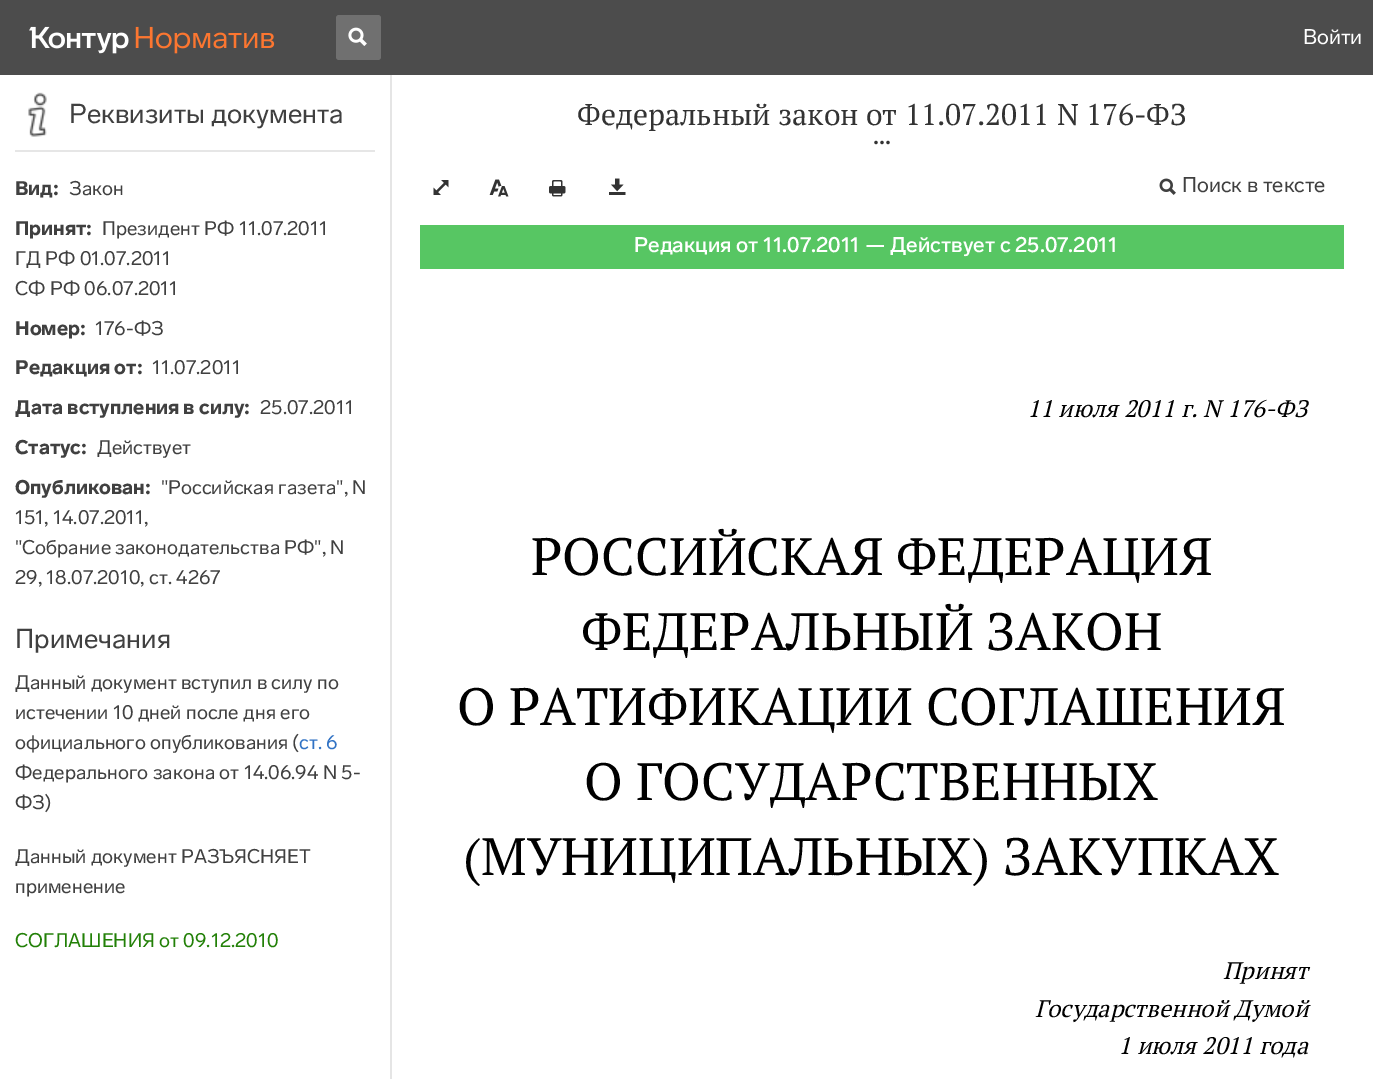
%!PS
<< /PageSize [1373 1079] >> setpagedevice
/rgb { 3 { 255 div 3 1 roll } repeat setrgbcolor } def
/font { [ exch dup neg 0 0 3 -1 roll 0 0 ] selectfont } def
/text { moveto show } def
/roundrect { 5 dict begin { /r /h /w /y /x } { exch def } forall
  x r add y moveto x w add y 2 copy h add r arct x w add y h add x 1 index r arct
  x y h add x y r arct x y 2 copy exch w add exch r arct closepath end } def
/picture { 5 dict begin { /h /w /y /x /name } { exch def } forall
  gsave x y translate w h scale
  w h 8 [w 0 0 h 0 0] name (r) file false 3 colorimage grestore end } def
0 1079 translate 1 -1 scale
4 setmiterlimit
255 255 255 rgb
0 0 1373 1079 rectfill
76 76 76 rgb
0 0 1373 75 rectfill
(img_01.rgb) 29 26 100 28 picture
(img_02.rgb) 135 26 140 28 picture
112 112 112 rgb
336 15 45 45 3 roundrect fill
(img_03.rgb) 348 27 19 19 picture
229 229 229 rgb
390 75 2 1004 rectfill
(img_04.rgb) 28 92 19 45 picture
230 230 230 rgb
15 150 360 2 rectfill
(img_05.rgb) 874 140 16 5 picture
(img_06.rgb) 433 180 16 15 picture
(img_07.rgb) 489 179 20 18 picture
(img_08.rgb) 549 180 17 17 picture
(img_09.rgb) 609 178 17 17 picture
(img_10.rgb) 1159 178 17 17 picture
87 198 99 rgb
420 225 924 44 rectfill
/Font-Regular 21 font
255 255 255 rgb
(Войти) 1303 44 text
/Font-Regular 27 font
64 64 64 rgb
(Реквизиты документа) 69 123 text
/Font-Black 19.5 font
(Вид:) 15 195 text
/Font-Regular 19.5 font
(Закон) 69 195 text
(Президент РФ 11.07.2011) 102 235 text
(ГД РФ 01.07.2011) 15 265 text
(СФ РФ 06.07.2011) 15 295 text
/Font-Black 19.5 font
(Принят:) 15 235 text
(Номер:) 15 335 text
/Font-Regular 19.5 font
(176-ФЗ) 95 335 text
/Font-Black 19.5 font
(Редакция от:) 15 374 text
/Font-Regular 19.5 font
(11.07.2011) 152 374 text
/Font-Black 19.5 font
(Дата вступления в силу:) 15 414 text
/Font-Regular 19.5 font
(25.07.2011) 260 414 text
/Font-Black 19.5 font
(Статус:) 15 454 text
/Font-Regular 19.5 font
(Действует) 97 454 text
/Font-Black 19.5 font
(Опубликован:) 15 494 text
/Font-Regular 19.5 font
("Российская газета", N) 161 494 text
(151, 14.07.2011,) 15 524 text
("Собрание законодательства РФ", N) 15 554 text
(29, 18.07.2010, ст. 4267) 15 584 text
/Font-Regular 27 font
(Примечания) 15 648 text
/Font-Regular 19.5 font
(Данный документ вступил в силу по) 15 689 text
(истечении 10 дней после дня его) 15 719 text
(официального опубликования \() 15 749 text
48 114 196 rgb
(ст. 6) 299 749 text
64 64 64 rgb
(Федерального закона от 14.06.94 N 5-) 15 779 text
(ФЗ\)) 15 809 text
(Данный документ РАЗЪЯСНЯЕТ) 15 863 text
(применение) 15 893 text
34 128 7 rgb
(СОГЛАШЕНИЯ от 09.12.2010) 15 947 text
/PTSerif-Regular 30 font
51 51 51 rgb
(Федеральный закон от 11.07.2011 N 176-ФЗ) 577 125 text
/Font-Regular 21 font
64 64 64 rgb
(Поиск в тексте) 1182 192 text
/Font-Medium 21 font
255 255 255 rgb
(Редакция от 11.07.2011 — Действует с 25.07.2011) 634 252 text
/PTSerif-Italic 24 font
0 0 0 rgb
(11 июля 2011 г. N 176-ФЗ) 1027 417 text
/PTSerif-Regular 52.5 font
(РОССИЙСКАЯ ФЕДЕРАЦИЯ) 531 575 text
(ФЕДЕРАЛЬНЫЙ ЗАКОН) 581 650 text
(О РАТИФИКАЦИИ СОГЛАШЕНИЯ) 457 725 text
(О ГОСУДАРСТВЕННЫХ) 584 800 text
(\(МУНИЦИПАЛЬНЫХ\) ЗАКУПКАХ) 463 875 text
/PTSerif-Italic 24 font
(Принят) 1223 979 text
(Государственной Думой) 1035 1017 text
(1 июля 2011 года) 1118 1054 text
showpage
